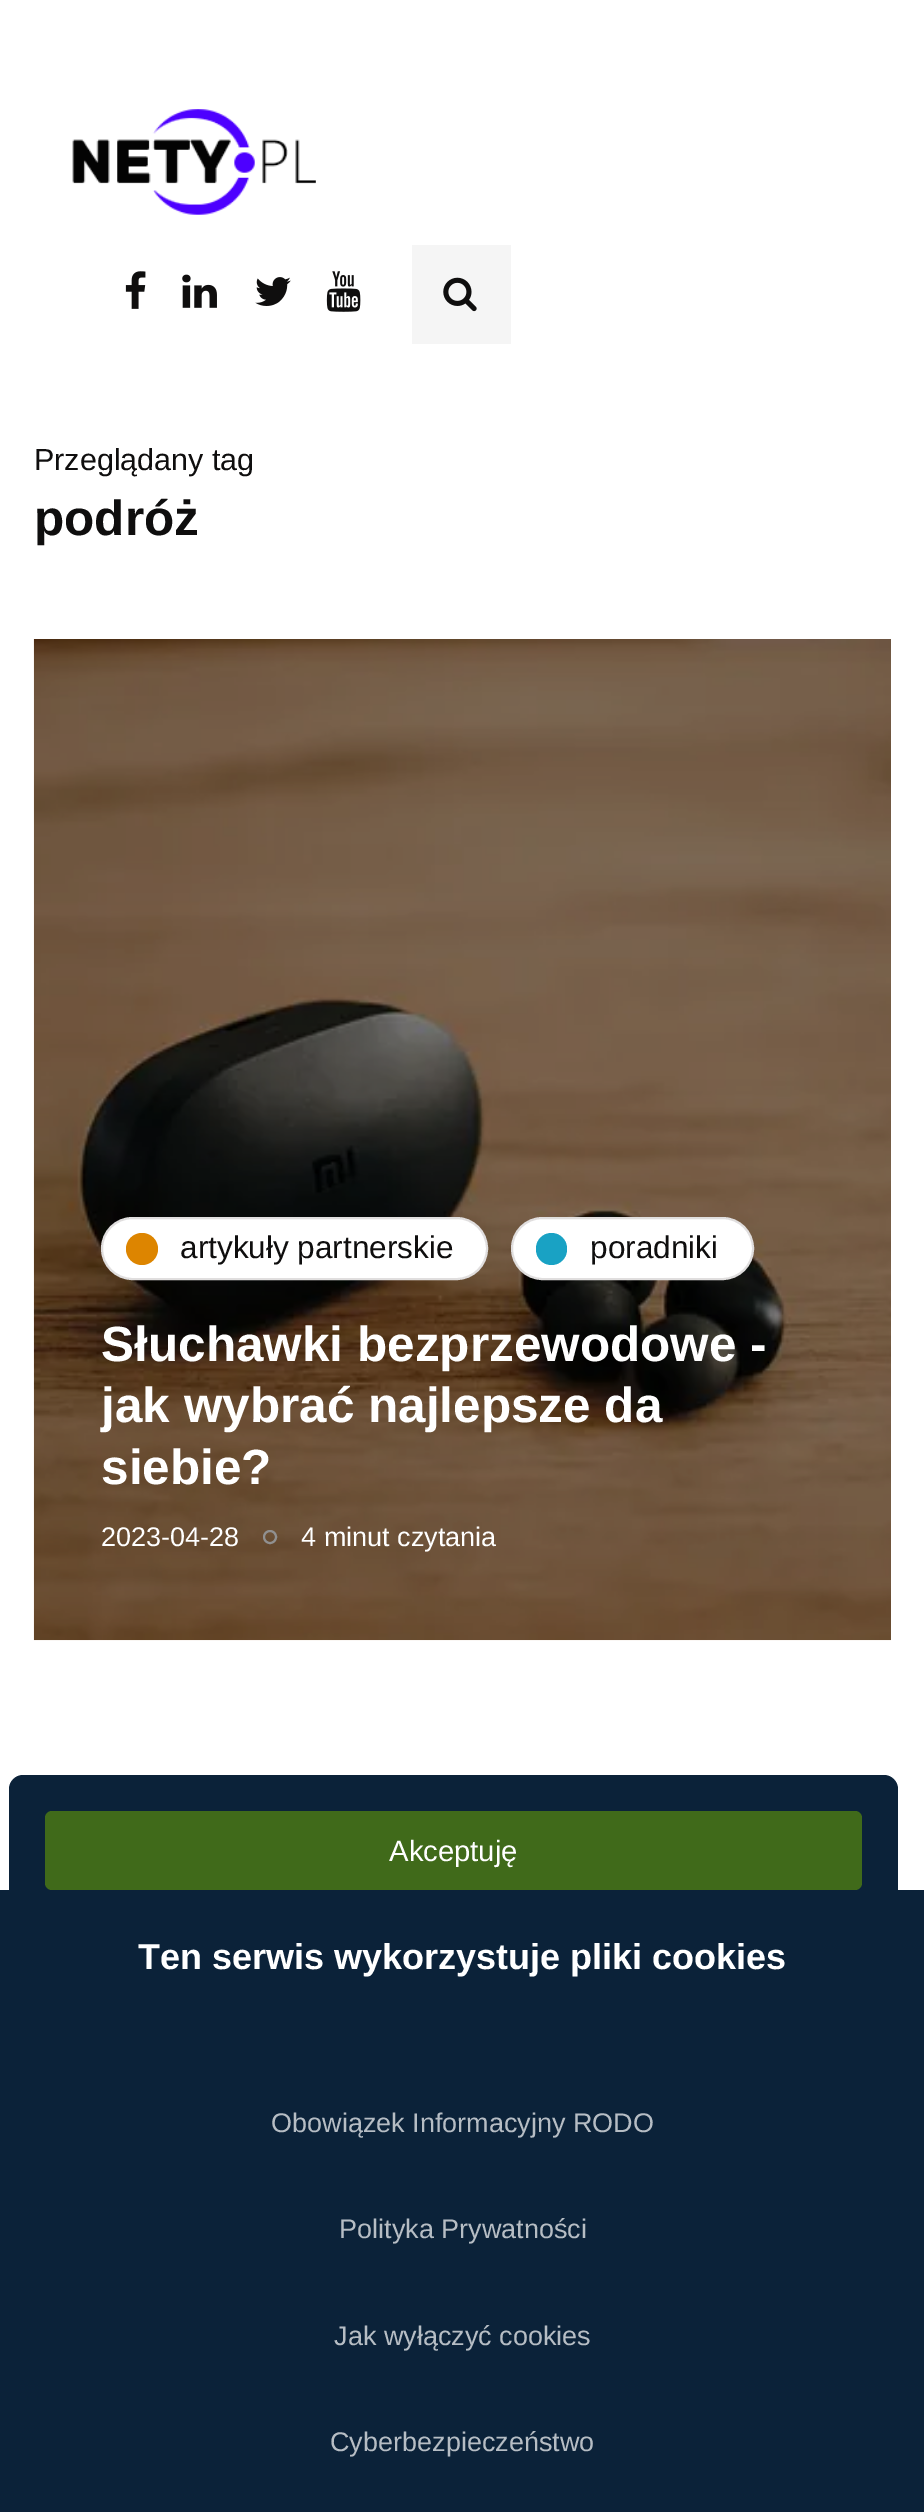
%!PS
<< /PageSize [924 2512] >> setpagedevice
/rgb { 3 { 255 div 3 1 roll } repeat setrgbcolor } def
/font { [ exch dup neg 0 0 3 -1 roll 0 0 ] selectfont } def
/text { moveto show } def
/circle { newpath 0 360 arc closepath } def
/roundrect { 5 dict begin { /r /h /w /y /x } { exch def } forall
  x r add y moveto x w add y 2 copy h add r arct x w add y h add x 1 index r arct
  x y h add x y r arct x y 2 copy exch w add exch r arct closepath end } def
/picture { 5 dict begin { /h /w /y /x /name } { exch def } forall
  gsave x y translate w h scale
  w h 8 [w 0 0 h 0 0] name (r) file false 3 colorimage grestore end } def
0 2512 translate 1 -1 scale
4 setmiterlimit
255 255 255 rgb
0 0 924 2512 rectfill
(img_01.rgb) 72 109 244 106 picture
(img_02.rgb) 125 271 21 38 picture
(img_03.rgb) 182 274 35 34 picture
(img_04.rgb) 255 277 36 29 picture
(img_05.rgb) 326 271 35 41 picture
245 245 245 rgb
412 245 99 99 rectfill
(img_06.rgb) 443 277 34 35 picture
(img_07.rgb) 33 639 858 1002 picture
255 255 255 rgb
102 1218 385 61 30.5 roundrect gsave fill grestore
224 222 222 rgb
2 setlinewidth
stroke
221 133 0 rgb
142 1249 16 circle fill
255 255 255 rgb
512 1218 241 61 30.5 roundrect gsave fill grestore
224 222 222 rgb
stroke
25 162 196 rgb
536 1233 31 32 15.5 roundrect fill
144 144 144 rgb
270 1537 6 circle stroke
11 34 57 rgb
23 1775 moveto 861 0 rlineto 7.5 0 14 6.5 14 14 rcurveto 0 101 rlineto -889 0 rlineto 0 -101 rlineto 0 -7.5 6.5 -14 14 -14 rcurveto closepath fill
64 106 26 rgb
45 1811 817 79 7 roundrect fill
11 34 57 rgb
0 1890 924 622 rectfill
/LiberationSans-Regular 30.5 font
15 14 14 rgb
(Przeglądany tag) 34 470 text
/LiberationSans-Bold 49.5 font
(podróż) 34 535 text
/LiberationSans-Regular 31.5 font
(artykuły partnerskie) 180 1258 text
(poradniki) 590 1258 text
/LiberationSans-Bold 49.5 font
255 255 255 rgb
(Słuchawki bezprzewodowe -) 101 1361 text
(jak wybrać najlepsze da) 101 1422 text
(siebie?) 101 1484 text
/LiberationSans-Regular 27 font
(2023-04-28) 101 1546 text
(4 minut czytania) 301 1546 text
/LiberationSans-Regular 29.25 font
(Akceptuję) 389 1861 text
/LiberationSans-Bold 36 font
(Ten serwis wykorzystuje pliki cookies) 138 1969 text
/LiberationSans-Regular 27 font
182 189 196 rgb
(Obowiązek Informacyjny RODO) 271 2132 text
(Polityka Prywatności) 339 2238 text
(Jak wyłączyć cookies) 334 2345 text
(Cyberbezpieczeństwo) 330 2451 text
showpage
